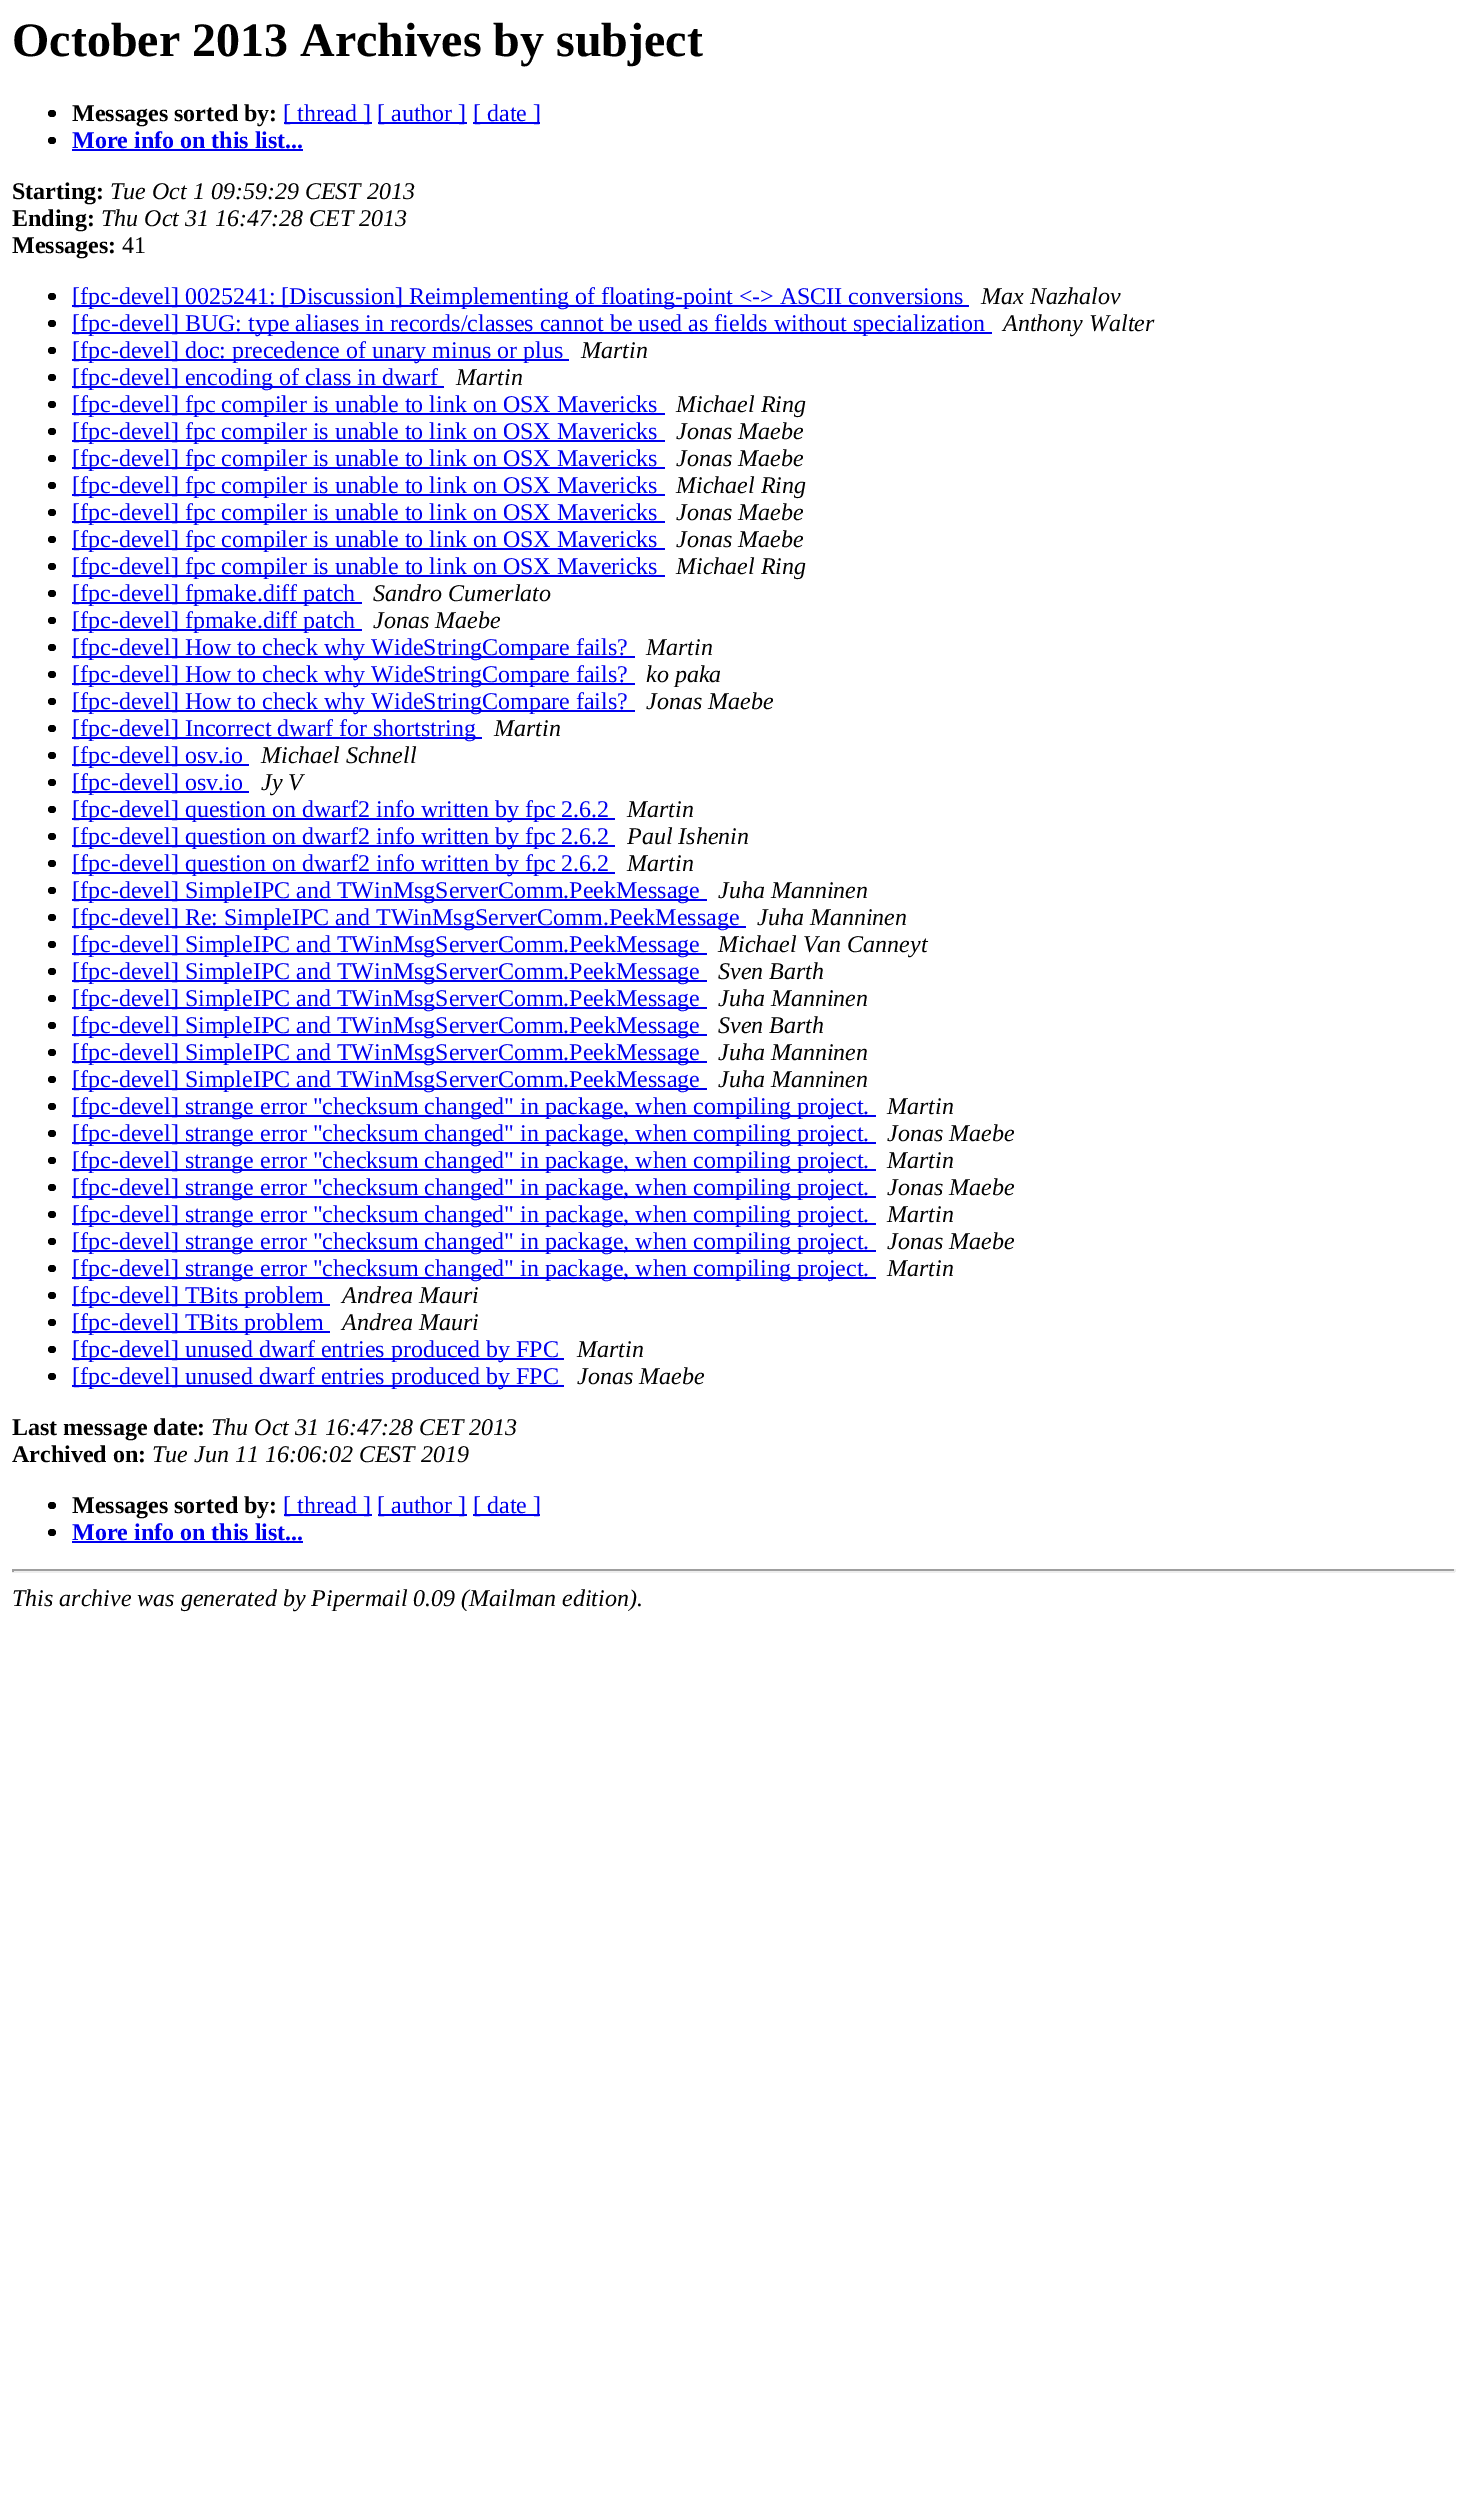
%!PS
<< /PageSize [1466 2499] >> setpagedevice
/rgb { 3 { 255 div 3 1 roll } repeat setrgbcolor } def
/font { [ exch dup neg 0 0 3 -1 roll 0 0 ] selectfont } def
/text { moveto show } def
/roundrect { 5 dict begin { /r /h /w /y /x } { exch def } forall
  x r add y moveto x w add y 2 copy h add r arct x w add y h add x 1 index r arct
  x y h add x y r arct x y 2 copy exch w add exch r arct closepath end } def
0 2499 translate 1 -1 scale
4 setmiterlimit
255 255 255 rgb
0 0 1466 2499 rectfill
0 0 0 rgb
48 110 8 7 3.5 roundrect fill
0 0 238 rgb
284 122 88 2 rectfill
378 122 89 2 rectfill
473 122 67 2 rectfill
0 0 0 rgb
48 137 8 7 3.5 roundrect fill
0 0 238 rgb
72 149 231 2 rectfill
0 0 0 rgb
48 293 8 7 3.5 roundrect fill
0 0 238 rgb
72 305 897 2 rectfill
0 0 0 rgb
48 320 8 7 3.5 roundrect fill
0 0 238 rgb
72 332 920 2 rectfill
0 0 0 rgb
48 347 8 7 3.5 roundrect fill
0 0 238 rgb
72 359 497 2 rectfill
0 0 0 rgb
48 374 8 7 3.5 roundrect fill
0 0 238 rgb
72 386 372 2 rectfill
0 0 0 rgb
48 401 8 7 3.5 roundrect fill
0 0 238 rgb
72 413 593 2 rectfill
0 0 0 rgb
48 428 8 7 3.5 roundrect fill
0 0 238 rgb
72 440 593 2 rectfill
0 0 0 rgb
48 455 8 7 3.5 roundrect fill
0 0 238 rgb
72 467 593 2 rectfill
0 0 0 rgb
48 482 8 7 3.5 roundrect fill
0 0 238 rgb
72 494 593 2 rectfill
0 0 0 rgb
48 509 8 7 3.5 roundrect fill
0 0 238 rgb
72 521 593 2 rectfill
0 0 0 rgb
48 536 8 7 3.5 roundrect fill
0 0 238 rgb
72 548 593 2 rectfill
0 0 0 rgb
48 563 8 7 3.5 roundrect fill
0 0 238 rgb
72 575 593 2 rectfill
0 0 0 rgb
48 590 8 7 3.5 roundrect fill
0 0 238 rgb
72 602 290 2 rectfill
0 0 0 rgb
48 617 8 7 3.5 roundrect fill
0 0 238 rgb
72 629 290 2 rectfill
0 0 0 rgb
48 644 8 7 3.5 roundrect fill
0 0 238 rgb
72 656 563 2 rectfill
0 0 0 rgb
48 671 8 7 3.5 roundrect fill
0 0 238 rgb
72 683 563 2 rectfill
0 0 0 rgb
48 698 8 7 3.5 roundrect fill
0 0 238 rgb
72 710 563 2 rectfill
0 0 0 rgb
48 725 8 7 3.5 roundrect fill
0 0 238 rgb
72 737 410 2 rectfill
0 0 0 rgb
48 752 8 7 3.5 roundrect fill
0 0 238 rgb
72 764 177 2 rectfill
0 0 0 rgb
48 779 8 7 3.5 roundrect fill
0 0 238 rgb
72 791 177 2 rectfill
0 0 0 rgb
48 806 8 7 3.5 roundrect fill
0 0 238 rgb
72 818 543 2 rectfill
0 0 0 rgb
48 833 8 7 3.5 roundrect fill
0 0 238 rgb
72 845 543 2 rectfill
0 0 0 rgb
48 860 8 7 3.5 roundrect fill
0 0 238 rgb
72 872 543 2 rectfill
0 0 0 rgb
48 887 8 7 3.5 roundrect fill
0 0 238 rgb
72 899 635 2 rectfill
0 0 0 rgb
48 914 8 7 3.5 roundrect fill
0 0 238 rgb
72 926 674 2 rectfill
0 0 0 rgb
48 941 8 7 3.5 roundrect fill
0 0 238 rgb
72 953 635 2 rectfill
0 0 0 rgb
48 968 8 7 3.5 roundrect fill
0 0 238 rgb
72 980 635 2 rectfill
0 0 0 rgb
48 995 8 7 3.5 roundrect fill
0 0 238 rgb
72 1007 635 2 rectfill
0 0 0 rgb
48 1022 8 7 3.5 roundrect fill
0 0 238 rgb
72 1034 635 2 rectfill
0 0 0 rgb
48 1049 8 7 3.5 roundrect fill
0 0 238 rgb
72 1061 635 2 rectfill
0 0 0 rgb
48 1076 8 7 3.5 roundrect fill
0 0 238 rgb
72 1088 635 2 rectfill
0 0 0 rgb
48 1103 8 7 3.5 roundrect fill
0 0 238 rgb
72 1115 804 2 rectfill
0 0 0 rgb
48 1130 8 7 3.5 roundrect fill
0 0 238 rgb
72 1142 804 2 rectfill
0 0 0 rgb
48 1157 8 7 3.5 roundrect fill
0 0 238 rgb
72 1169 804 2 rectfill
0 0 0 rgb
48 1184 8 7 3.5 roundrect fill
0 0 238 rgb
72 1196 804 2 rectfill
0 0 0 rgb
48 1211 8 7 3.5 roundrect fill
0 0 238 rgb
72 1223 804 2 rectfill
0 0 0 rgb
48 1238 8 7 3.5 roundrect fill
0 0 238 rgb
72 1250 804 2 rectfill
0 0 0 rgb
48 1265 8 7 3.5 roundrect fill
0 0 238 rgb
72 1277 804 2 rectfill
0 0 0 rgb
48 1292 8 7 3.5 roundrect fill
0 0 238 rgb
72 1304 258 2 rectfill
0 0 0 rgb
48 1319 8 7 3.5 roundrect fill
0 0 238 rgb
72 1331 258 2 rectfill
0 0 0 rgb
48 1346 8 7 3.5 roundrect fill
0 0 238 rgb
72 1358 492 2 rectfill
0 0 0 rgb
48 1373 8 7 3.5 roundrect fill
0 0 238 rgb
72 1385 492 2 rectfill
0 0 0 rgb
48 1502 8 7 3.5 roundrect fill
0 0 238 rgb
284 1514 88 2 rectfill
378 1514 89 2 rectfill
473 1514 67 2 rectfill
0 0 0 rgb
48 1529 8 7 3.5 roundrect fill
0 0 238 rgb
72 1541 231 2 rectfill
159 159 159 rgb
12 1569 1443 2 rectfill
238 238 238 rgb
1454 1569 2 3 rectfill
12 1571 1443 2 rectfill
159 159 159 rgb
12 1569 2 3 rectfill
/LiberationSerif-Bold 48 font
0 0 0 rgb
(October 2013 Archives by subject) 12 56 text
/LiberationSerif-Bold 24 font
(Messages sorted by:) 72 121 text
/LiberationSerif-Regular 24 font
0 0 238 rgb
([ thread ]) 283 121 text
([ author ]) 377 121 text
([ date ]) 473 121 text
/LiberationSerif-Bold 24 font
(More info on this list...) 72 148 text
0 0 0 rgb
(Starting:) 12 199 text
/LiberationSerif-Italic 24 font
(Tue Oct 1 09:59:29 CEST 2013) 110 199 text
/LiberationSerif-Bold 24 font
(Ending:) 12 226 text
/LiberationSerif-Italic 24 font
(Thu Oct 31 16:47:28 CET 2013) 101 226 text
/LiberationSerif-Bold 24 font
(Messages:) 12 253 text
/LiberationSerif-Regular 24 font
(41) 122 253 text
0 0 238 rgb
([fpc-devel] 0025241: [Discussion] Reimplementing of floating-point <-> ASCII conversions) 72 304 text
/LiberationSerif-Italic 24 font
0 0 0 rgb
(Max Nazhalov) 981 304 text
/LiberationSerif-Regular 24 font
0 0 238 rgb
([fpc-devel] BUG: type aliases in records/classes cannot be used as fields without specialization) 72 331 text
/LiberationSerif-Italic 24 font
0 0 0 rgb
(Anthony Walter) 1003 331 text
/LiberationSerif-Regular 24 font
0 0 238 rgb
([fpc-devel] doc: precedence of unary minus or plus) 72 358 text
/LiberationSerif-Italic 24 font
0 0 0 rgb
(Martin) 581 358 text
/LiberationSerif-Regular 24 font
0 0 238 rgb
([fpc-devel] encoding of class in dwarf) 72 385 text
/LiberationSerif-Italic 24 font
0 0 0 rgb
(Martin) 456 385 text
/LiberationSerif-Regular 24 font
0 0 238 rgb
([fpc-devel] fpc compiler is unable to link on OSX Mavericks) 72 412 text
/LiberationSerif-Italic 24 font
0 0 0 rgb
(Michael Ring) 676 412 text
/LiberationSerif-Regular 24 font
0 0 238 rgb
([fpc-devel] fpc compiler is unable to link on OSX Mavericks) 72 439 text
/LiberationSerif-Italic 24 font
0 0 0 rgb
(Jonas Maebe) 676 439 text
/LiberationSerif-Regular 24 font
0 0 238 rgb
([fpc-devel] fpc compiler is unable to link on OSX Mavericks) 72 466 text
/LiberationSerif-Italic 24 font
0 0 0 rgb
(Jonas Maebe) 676 466 text
/LiberationSerif-Regular 24 font
0 0 238 rgb
([fpc-devel] fpc compiler is unable to link on OSX Mavericks) 72 493 text
/LiberationSerif-Italic 24 font
0 0 0 rgb
(Michael Ring) 676 493 text
/LiberationSerif-Regular 24 font
0 0 238 rgb
([fpc-devel] fpc compiler is unable to link on OSX Mavericks) 72 520 text
/LiberationSerif-Italic 24 font
0 0 0 rgb
(Jonas Maebe) 676 520 text
/LiberationSerif-Regular 24 font
0 0 238 rgb
([fpc-devel] fpc compiler is unable to link on OSX Mavericks) 72 547 text
/LiberationSerif-Italic 24 font
0 0 0 rgb
(Jonas Maebe) 676 547 text
/LiberationSerif-Regular 24 font
0 0 238 rgb
([fpc-devel] fpc compiler is unable to link on OSX Mavericks) 72 574 text
/LiberationSerif-Italic 24 font
0 0 0 rgb
(Michael Ring) 676 574 text
/LiberationSerif-Regular 24 font
0 0 238 rgb
([fpc-devel] fpmake.diff patch) 72 601 text
/LiberationSerif-Italic 24 font
0 0 0 rgb
(Sandro Cumerlato) 373 601 text
/LiberationSerif-Regular 24 font
0 0 238 rgb
([fpc-devel] fpmake.diff patch) 72 628 text
/LiberationSerif-Italic 24 font
0 0 0 rgb
(Jonas Maebe) 373 628 text
/LiberationSerif-Regular 24 font
0 0 238 rgb
([fpc-devel] How to check why WideStringCompare fails?) 72 655 text
/LiberationSerif-Italic 24 font
0 0 0 rgb
(Martin) 646 655 text
/LiberationSerif-Regular 24 font
0 0 238 rgb
([fpc-devel] How to check why WideStringCompare fails?) 72 682 text
/LiberationSerif-Italic 24 font
0 0 0 rgb
(ko paka) 646 682 text
/LiberationSerif-Regular 24 font
0 0 238 rgb
([fpc-devel] How to check why WideStringCompare fails?) 72 709 text
/LiberationSerif-Italic 24 font
0 0 0 rgb
(Jonas Maebe) 646 709 text
/LiberationSerif-Regular 24 font
0 0 238 rgb
([fpc-devel] Incorrect dwarf for shortstring) 72 736 text
/LiberationSerif-Italic 24 font
0 0 0 rgb
(Martin) 494 736 text
/LiberationSerif-Regular 24 font
0 0 238 rgb
([fpc-devel] osv.io) 72 763 text
/LiberationSerif-Italic 24 font
0 0 0 rgb
(Michael Schnell) 261 763 text
/LiberationSerif-Regular 24 font
0 0 238 rgb
([fpc-devel] osv.io) 72 790 text
/LiberationSerif-Italic 24 font
0 0 0 rgb
(Jy V) 261 790 text
/LiberationSerif-Regular 24 font
0 0 238 rgb
([fpc-devel] question on dwarf2 info written by fpc 2.6.2) 72 817 text
/LiberationSerif-Italic 24 font
0 0 0 rgb
(Martin) 627 817 text
/LiberationSerif-Regular 24 font
0 0 238 rgb
([fpc-devel] question on dwarf2 info written by fpc 2.6.2) 72 844 text
/LiberationSerif-Italic 24 font
0 0 0 rgb
(Paul Ishenin) 627 844 text
/LiberationSerif-Regular 24 font
0 0 238 rgb
([fpc-devel] question on dwarf2 info written by fpc 2.6.2) 72 871 text
/LiberationSerif-Italic 24 font
0 0 0 rgb
(Martin) 627 871 text
/LiberationSerif-Regular 24 font
0 0 238 rgb
([fpc-devel] SimpleIPC and TWinMsgServerComm.PeekMessage) 72 898 text
/LiberationSerif-Italic 24 font
0 0 0 rgb
(Juha Manninen) 718 898 text
/LiberationSerif-Regular 24 font
0 0 238 rgb
([fpc-devel] Re: SimpleIPC and TWinMsgServerComm.PeekMessage) 72 925 text
/LiberationSerif-Italic 24 font
0 0 0 rgb
(Juha Manninen) 757 925 text
/LiberationSerif-Regular 24 font
0 0 238 rgb
([fpc-devel] SimpleIPC and TWinMsgServerComm.PeekMessage) 72 952 text
/LiberationSerif-Italic 24 font
0 0 0 rgb
(Michael Van Canneyt) 718 952 text
/LiberationSerif-Regular 24 font
0 0 238 rgb
([fpc-devel] SimpleIPC and TWinMsgServerComm.PeekMessage) 72 979 text
/LiberationSerif-Italic 24 font
0 0 0 rgb
(Sven Barth) 718 979 text
/LiberationSerif-Regular 24 font
0 0 238 rgb
([fpc-devel] SimpleIPC and TWinMsgServerComm.PeekMessage) 72 1006 text
/LiberationSerif-Italic 24 font
0 0 0 rgb
(Juha Manninen) 718 1006 text
/LiberationSerif-Regular 24 font
0 0 238 rgb
([fpc-devel] SimpleIPC and TWinMsgServerComm.PeekMessage) 72 1033 text
/LiberationSerif-Italic 24 font
0 0 0 rgb
(Sven Barth) 718 1033 text
/LiberationSerif-Regular 24 font
0 0 238 rgb
([fpc-devel] SimpleIPC and TWinMsgServerComm.PeekMessage) 72 1060 text
/LiberationSerif-Italic 24 font
0 0 0 rgb
(Juha Manninen) 718 1060 text
/LiberationSerif-Regular 24 font
0 0 238 rgb
([fpc-devel] SimpleIPC and TWinMsgServerComm.PeekMessage) 72 1087 text
/LiberationSerif-Italic 24 font
0 0 0 rgb
(Juha Manninen) 718 1087 text
/LiberationSerif-Regular 24 font
0 0 238 rgb
([fpc-devel] strange error "checksum changed" in package, when compiling project.) 72 1114 text
/LiberationSerif-Italic 24 font
0 0 0 rgb
(Martin) 887 1114 text
/LiberationSerif-Regular 24 font
0 0 238 rgb
([fpc-devel] strange error "checksum changed" in package, when compiling project.) 72 1141 text
/LiberationSerif-Italic 24 font
0 0 0 rgb
(Jonas Maebe) 887 1141 text
/LiberationSerif-Regular 24 font
0 0 238 rgb
([fpc-devel] strange error "checksum changed" in package, when compiling project.) 72 1168 text
/LiberationSerif-Italic 24 font
0 0 0 rgb
(Martin) 887 1168 text
/LiberationSerif-Regular 24 font
0 0 238 rgb
([fpc-devel] strange error "checksum changed" in package, when compiling project.) 72 1195 text
/LiberationSerif-Italic 24 font
0 0 0 rgb
(Jonas Maebe) 887 1195 text
/LiberationSerif-Regular 24 font
0 0 238 rgb
([fpc-devel] strange error "checksum changed" in package, when compiling project.) 72 1222 text
/LiberationSerif-Italic 24 font
0 0 0 rgb
(Martin) 887 1222 text
/LiberationSerif-Regular 24 font
0 0 238 rgb
([fpc-devel] strange error "checksum changed" in package, when compiling project.) 72 1249 text
/LiberationSerif-Italic 24 font
0 0 0 rgb
(Jonas Maebe) 887 1249 text
/LiberationSerif-Regular 24 font
0 0 238 rgb
([fpc-devel] strange error "checksum changed" in package, when compiling project.) 72 1276 text
/LiberationSerif-Italic 24 font
0 0 0 rgb
(Martin) 887 1276 text
/LiberationSerif-Regular 24 font
0 0 238 rgb
([fpc-devel] TBits problem) 72 1303 text
/LiberationSerif-Italic 24 font
0 0 0 rgb
(Andrea Mauri) 342 1303 text
/LiberationSerif-Regular 24 font
0 0 238 rgb
([fpc-devel] TBits problem) 72 1330 text
/LiberationSerif-Italic 24 font
0 0 0 rgb
(Andrea Mauri) 342 1330 text
/LiberationSerif-Regular 24 font
0 0 238 rgb
([fpc-devel] unused dwarf entries produced by FPC) 72 1357 text
/LiberationSerif-Italic 24 font
0 0 0 rgb
(Martin) 577 1357 text
/LiberationSerif-Regular 24 font
0 0 238 rgb
([fpc-devel] unused dwarf entries produced by FPC) 72 1384 text
/LiberationSerif-Italic 24 font
0 0 0 rgb
(Jonas Maebe) 577 1384 text
/LiberationSerif-Bold 24 font
(Last message date:) 12 1435 text
/LiberationSerif-Italic 24 font
(Thu Oct 31 16:47:28 CET 2013) 211 1435 text
/LiberationSerif-Bold 24 font
(Archived on:) 12 1462 text
/LiberationSerif-Italic 24 font
(Tue Jun 11 16:06:02 CEST 2019) 152 1462 text
/LiberationSerif-Bold 24 font
(Messages sorted by:) 72 1513 text
/LiberationSerif-Regular 24 font
0 0 238 rgb
([ thread ]) 283 1513 text
([ author ]) 377 1513 text
([ date ]) 473 1513 text
/LiberationSerif-Bold 24 font
(More info on this list...) 72 1540 text
/LiberationSerif-Italic 24 font
0 0 0 rgb
(This archive was generated by Pipermail 0.09 \(Mailman edition\).) 12 1606 text
showpage
